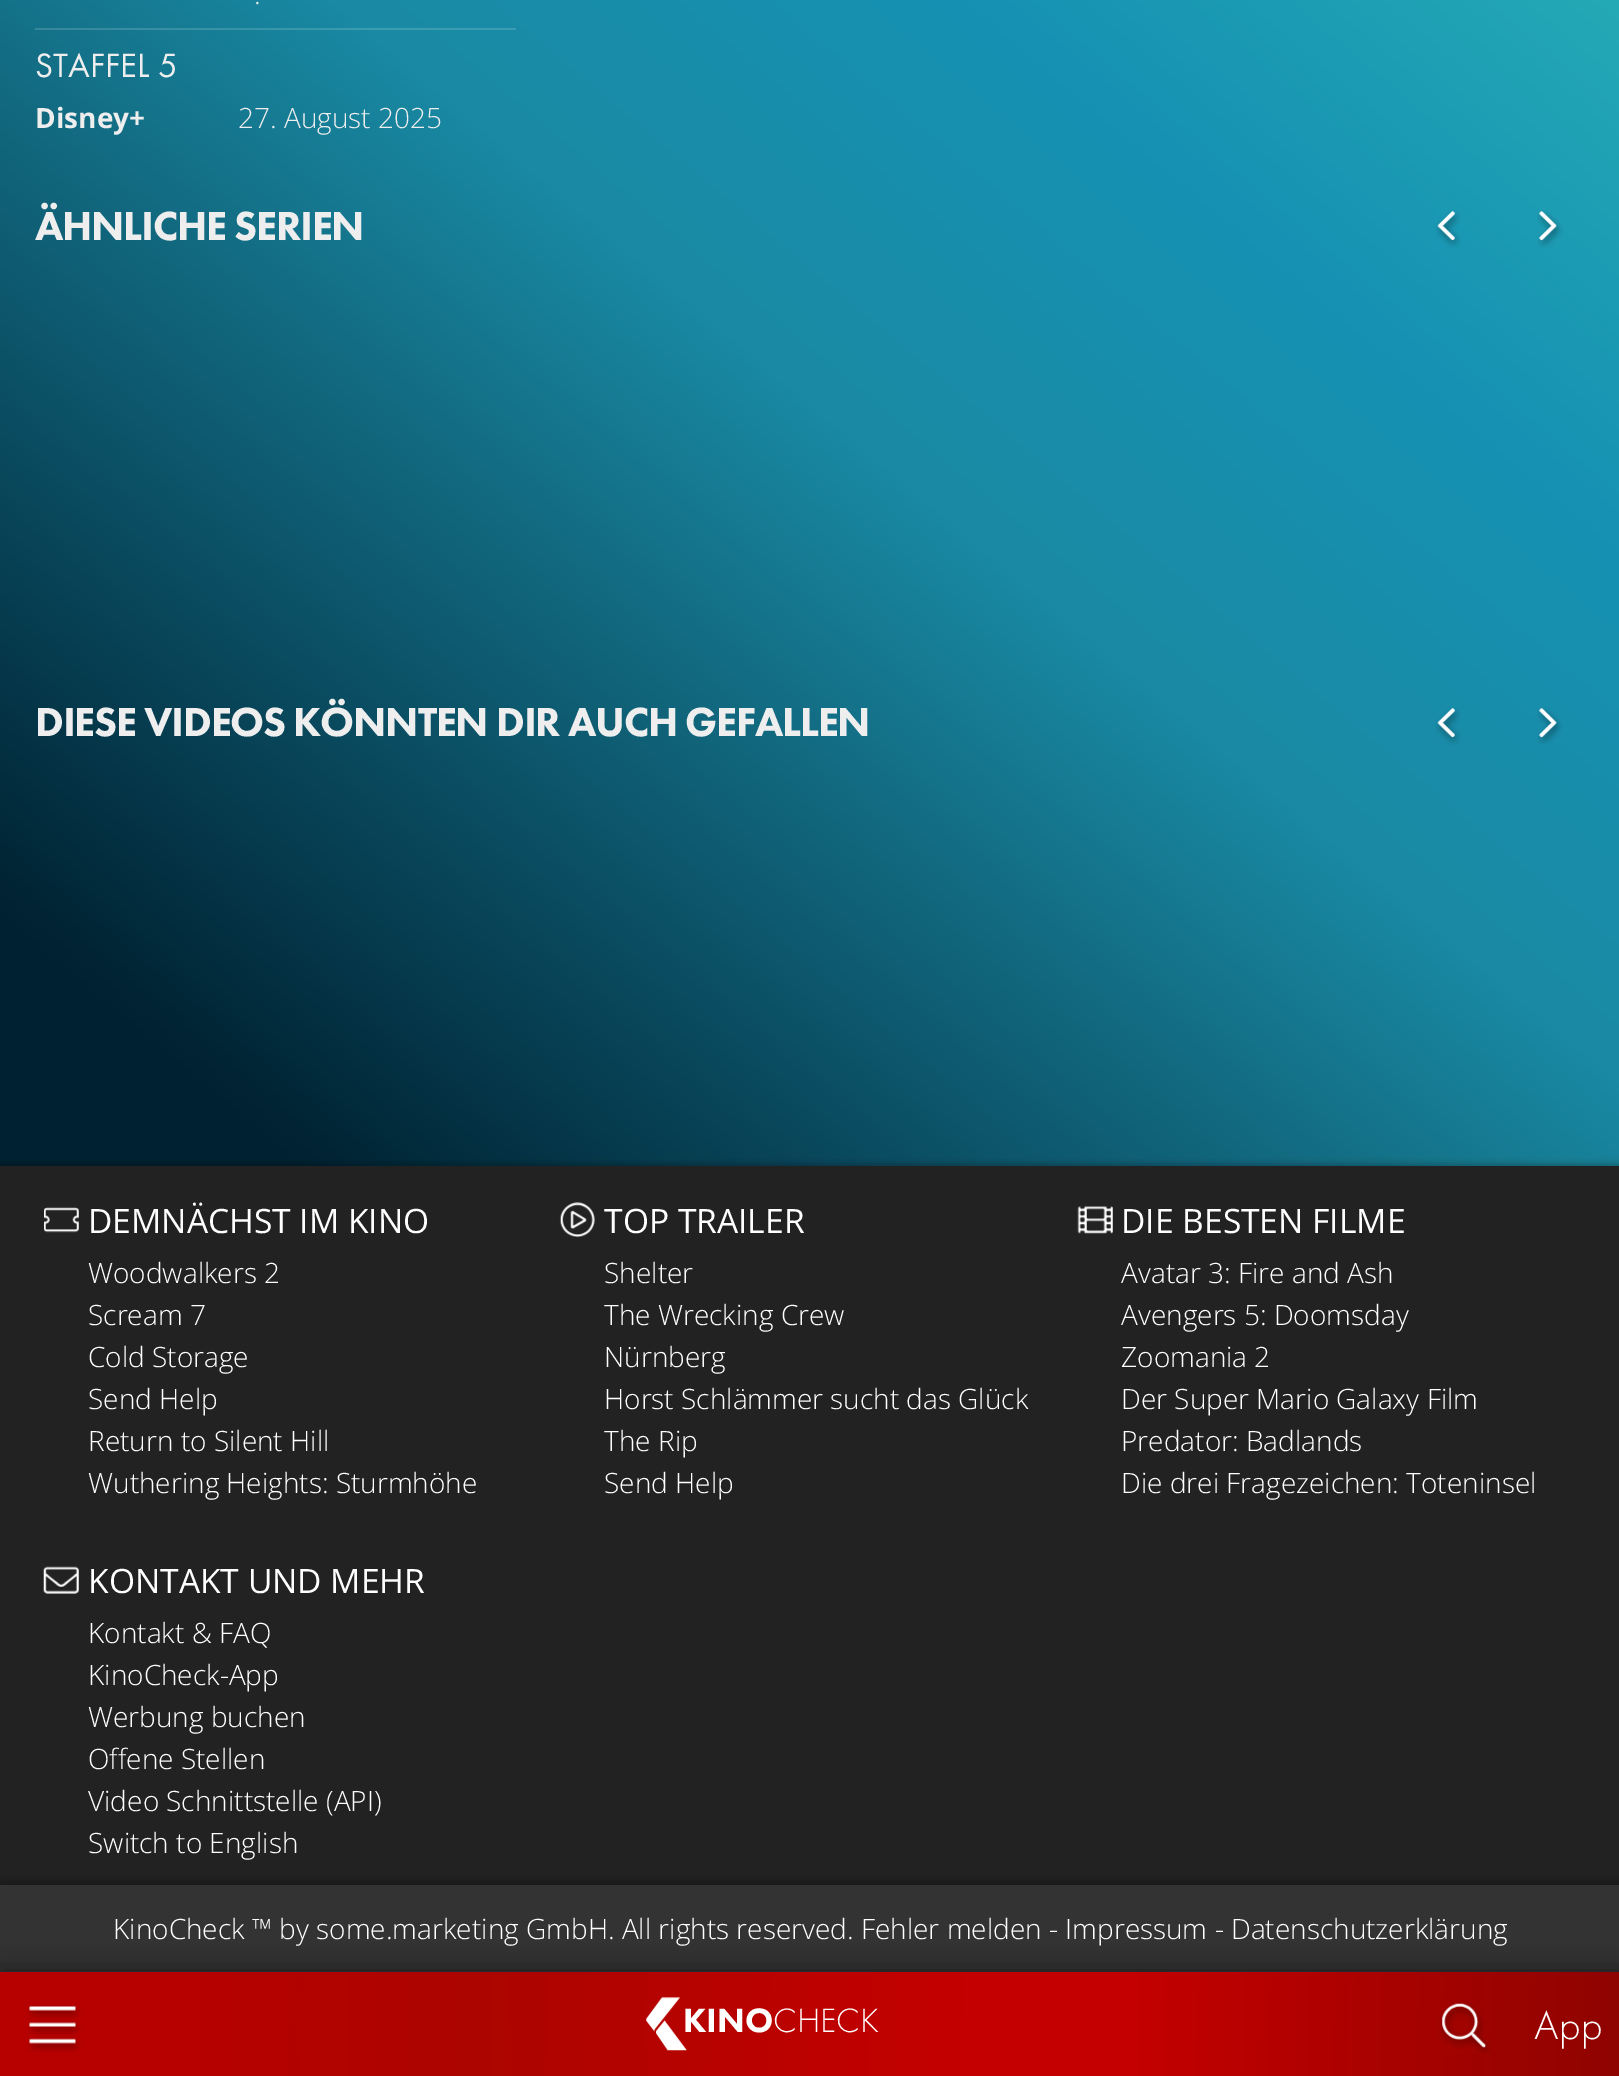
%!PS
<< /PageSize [1619 2076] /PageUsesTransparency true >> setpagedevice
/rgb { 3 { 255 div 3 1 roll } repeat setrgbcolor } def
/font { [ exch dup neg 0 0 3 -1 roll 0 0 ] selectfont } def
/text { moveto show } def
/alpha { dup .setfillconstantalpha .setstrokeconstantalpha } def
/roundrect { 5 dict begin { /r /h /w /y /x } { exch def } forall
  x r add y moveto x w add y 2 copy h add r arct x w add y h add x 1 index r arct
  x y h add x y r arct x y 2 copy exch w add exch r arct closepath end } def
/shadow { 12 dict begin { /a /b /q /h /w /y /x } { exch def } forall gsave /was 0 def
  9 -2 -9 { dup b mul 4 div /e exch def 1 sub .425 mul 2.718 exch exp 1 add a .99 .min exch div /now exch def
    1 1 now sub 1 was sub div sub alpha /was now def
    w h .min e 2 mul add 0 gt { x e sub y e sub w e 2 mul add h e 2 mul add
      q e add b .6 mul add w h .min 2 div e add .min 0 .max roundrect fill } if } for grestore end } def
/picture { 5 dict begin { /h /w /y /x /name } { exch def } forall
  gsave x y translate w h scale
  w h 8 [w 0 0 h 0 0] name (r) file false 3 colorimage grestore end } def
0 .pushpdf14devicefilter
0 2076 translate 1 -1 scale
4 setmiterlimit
255 255 255 rgb
0 0 1619 2076 rectfill
gsave 0 0 moveto 1619 0 rlineto 0 1166 rlineto -1619 0 rlineto closepath clip newpath
<< /ShadingType 2 /ColorSpace /DeviceRGB /Coords [-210 990 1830 -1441] /Extend [true true] /Function << /FunctionType 3 /Domain [0 1] /Functions [<< /FunctionType 2 /Domain [0 1] /C0 [0 0.129 0.192] /C1 [0 0.129 0.192] /N 1 >> << /FunctionType 2 /Domain [0 1] /C0 [0 0.129 0.192] /C1 [0.102 0.541 0.643] /N 1 >> << /FunctionType 2 /Domain [0 1] /C0 [0.102 0.541 0.643] /C1 [0.086 0.569 0.702] /N 1 >> << /FunctionType 2 /Domain [0 1] /C0 [0.086 0.569 0.702] /C1 [0.157 0.69 0.718] /N 1 >> << /FunctionType 2 /Domain [0 1] /C0 [0.157 0.69 0.718] /C1 [0.051 0.384 0.533] /N 1 >>] /Bounds [0.06 0.35 0.48 0.65] /Encode [0 1 0 1 0 1 0 1 0 1] >> >> shfill grestore
gsave 35 28 moveto 481 0 rlineto 0 2 rlineto -481 0 rlineto closepath clip newpath
<< /ShadingType 2 /ColorSpace /DeviceRGB /Coords [-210 990 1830 -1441] /Extend [true true] /Function << /FunctionType 3 /Domain [0 1] /Functions [<< /FunctionType 2 /Domain [0 1] /C0 [0.149 0.259 0.314] /C1 [0.149 0.259 0.314] /N 1 >> << /FunctionType 2 /Domain [0 1] /C0 [0.149 0.259 0.314] /C1 [0.235 0.612 0.698] /N 1 >> << /FunctionType 2 /Domain [0 1] /C0 [0.235 0.612 0.698] /C1 [0.224 0.635 0.745] /N 1 >> << /FunctionType 2 /Domain [0 1] /C0 [0.224 0.635 0.745] /C1 [0.282 0.737 0.761] /N 1 >> << /FunctionType 2 /Domain [0 1] /C0 [0.282 0.737 0.761] /C1 [0.192 0.478 0.604] /N 1 >>] /Bounds [0.06 0.35 0.48 0.65] /Encode [0 1 0 1 0 1 0 1 0 1] >> >> shfill grestore
(img_01.rgb) 1435 210 26 38 picture
(img_02.rgb) 1537 210 26 38 picture
(img_03.rgb) 1435 708 25 37 picture
(img_04.rgb) 1537 707 26 38 picture
0 0 0 rgb
0 1164 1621 912 0 3.5 0.18 shadow
0 1164 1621 912 0 3.5 0.12 shadow
34 34 34 rgb
0 1166 1619 719 rectfill
(img_05.rgb) 44 1207 35 26 picture
(img_06.rgb) 559 1202 36 35 picture
(img_07.rgb) 1077 1206 36 28 picture
(img_08.rgb) 43 1566 36 28 picture
0 0 0 rgb
0 1881 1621 88 0 5 0.18 shadow
0 1881 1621 88 0 5 0.12 shadow
52 51 51 rgb
0 1885 1619 87 rectfill
0 0 0 rgb
0 1972 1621 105 0 13 0.5 shadow
gsave 0 1972 moveto 1619 0 rlineto 0 104 rlineto -1619 0 rlineto closepath clip newpath
<< /ShadingType 2 /ColorSpace /DeviceRGB /Coords [-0.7 2011 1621 2039] /Extend [true true] /Function << /FunctionType 3 /Domain [0 1] /Functions [<< /FunctionType 2 /Domain [0 1] /C0 [0.718 0.004 0] /C1 [0.718 0.004 0] /N 1 >> << /FunctionType 2 /Domain [0 1] /C0 [0.718 0.004 0] /C1 [0.675 0.02 0] /N 1 >> << /FunctionType 2 /Domain [0 1] /C0 [0.675 0.02 0] /C1 [0.769 0 0] /N 1 >> << /FunctionType 2 /Domain [0 1] /C0 [0.769 0 0] /C1 [0.769 0 0] /N 1 >> << /FunctionType 2 /Domain [0 1] /C0 [0.769 0 0] /C1 [0.561 0.016 0] /N 1 >>] /Bounds [0.1 0.3 0.6 0.7] /Encode [0 1 0 1 0 1 0 1 0 1] >> >> shfill grestore
(img_09.rgb) 27 2004 55 49 picture
(img_11.rgb) 1439 2002 52 52 picture
/OpenSans-Light 28 font
238 238 238 rgb
(.) 254 4 text
/FuturaPT-Regular 35 font
(STAFFEL 5) 35 77 text
/OpenSans-Bold 28 font
(Disney+) 35 128 text
/OpenSans-Light 28 font
(27. August 2025) 238 128 text
/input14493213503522-Regular 42 font
35 240 moveto -1.25 0 (ÄHNLICHE SERIEN) ashow
35 736 moveto -1.25 0 (DIESE VIDEOS KÖNNTEN DIR AUCH GEFALLEN) ashow
/OpenSans-Regular 33.6 font
255 255 255 rgb
(DEMNÄCHST IM KINO) 88 1233 text
/OpenSans-Light 28 font
(Woodwalkers 2) 88 1283 text
(Scream 7) 88 1325 text
(Cold Storage) 88 1367 text
(Send Help) 88 1409 text
(Return to Silent Hill) 88 1451 text
(Wuthering Heights: Sturmhöhe) 88 1493 text
/OpenSans-Regular 33.6 font
(TOP TRAILER) 604 1233 text
/OpenSans-Light 28 font
(Shelter) 604 1283 text
(The Wrecking Crew) 604 1325 text
(Nürnberg) 604 1367 text
(Horst Schlämmer sucht das Glück) 604 1409 text
(The Rip) 604 1451 text
(Send Help) 604 1493 text
/OpenSans-Regular 33.6 font
(DIE BESTEN FILME) 1121 1233 text
/OpenSans-Light 28 font
(Avatar 3: Fire and Ash) 1121 1283 text
(Avengers 5: Doomsday) 1121 1325 text
(Zoomania 2) 1121 1367 text
(Der Super Mario Galaxy Film) 1121 1409 text
(Predator: Badlands) 1121 1451 text
(Die drei Fragezeichen: Toteninsel) 1121 1493 text
/OpenSans-Regular 33.6 font
(KONTAKT UND MEHR) 88 1593 text
/OpenSans-Light 28 font
(Kontakt & FAQ) 88 1643 text
(KinoCheck-App) 88 1685 text
(Werbung buchen) 88 1727 text
(Offene Stellen) 88 1769 text
(Video Schnittstelle \(API\)) 88 1811 text
(Switch to English) 88 1853 text
(KinoCheck ™ by some.marketing GmbH. All rights reserved. Fehler melden - Impressum - Datenschutzerklärung) 113 1939 text
/input14493213503522-Regular 35 font
(KINO) 683 2032 text
(img_10.rgb) 646 1997 41 54 picture
/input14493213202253-Regular 35 font
(CHECK) 773 2032 text
/input14493213202253-Regular 42 font
1534 2039 moveto 0.5 0 (App) ashow
.poppdf14devicefilter showpage
